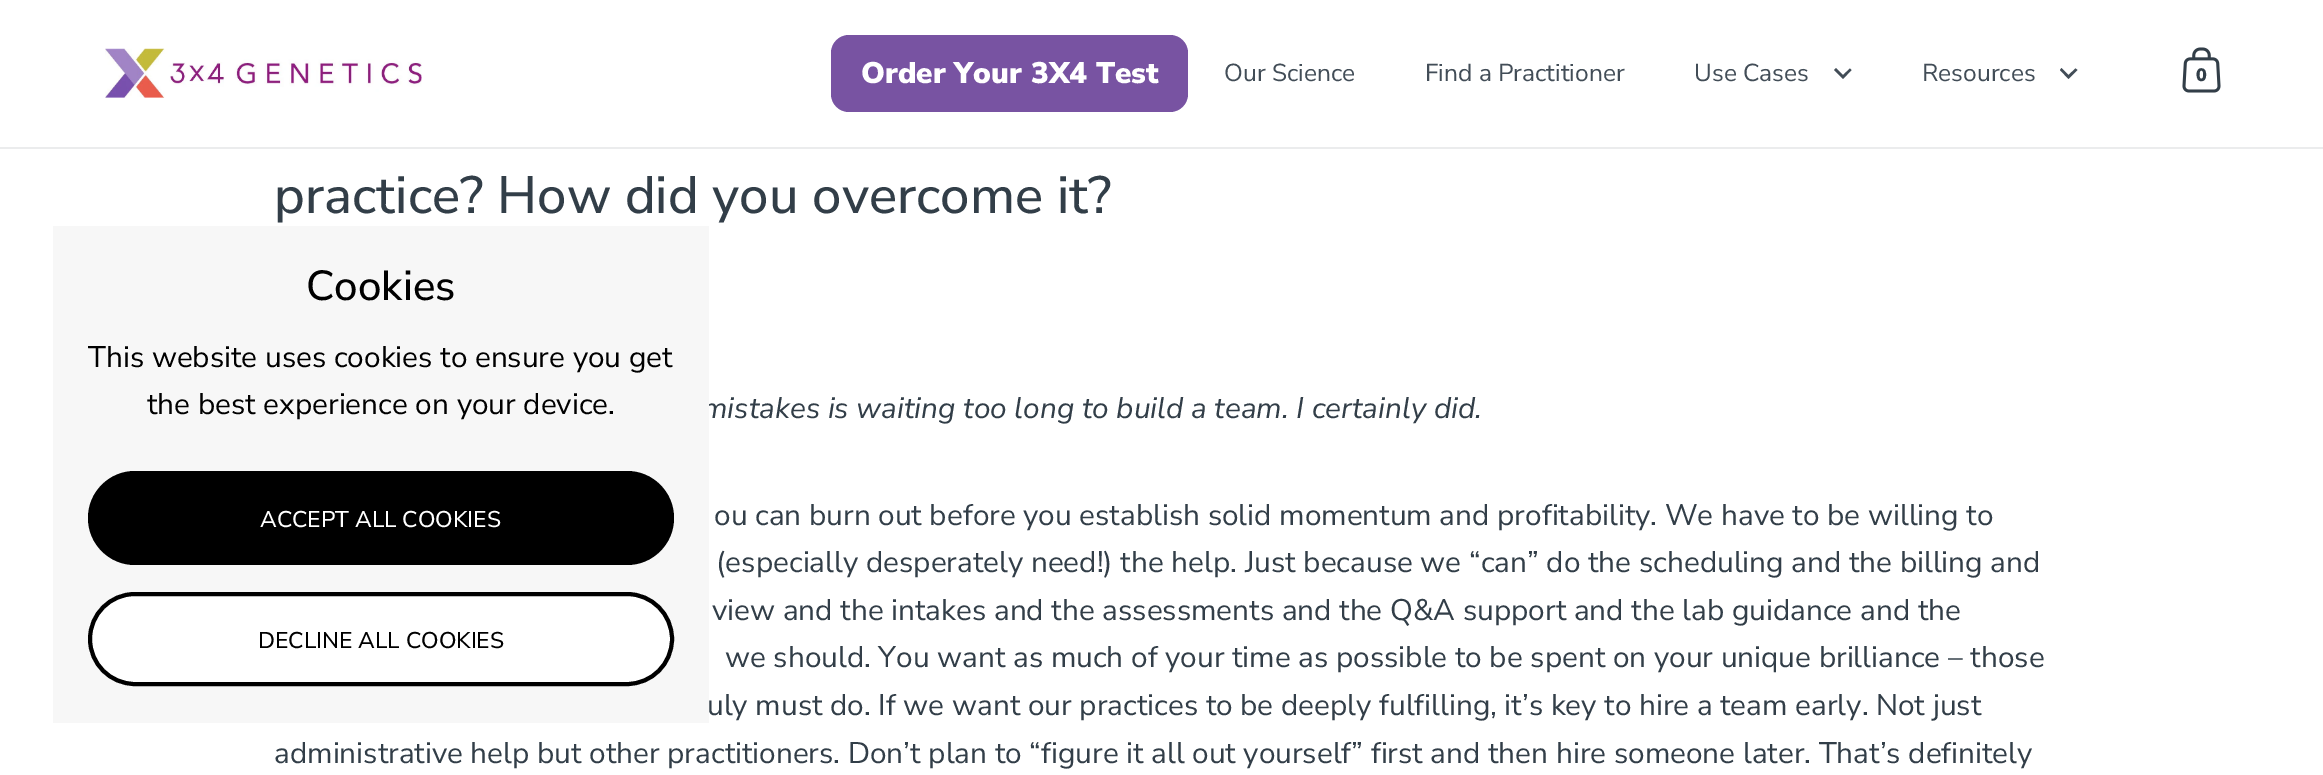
%!PS
<< /PageSize [2323 775] >> setpagedevice
/rgb { 3 { 255 div 3 1 roll } repeat setrgbcolor } def
/font { [ exch dup neg 0 0 3 -1 roll 0 0 ] selectfont } def
/text { moveto show } def
/roundrect { 5 dict begin { /r /h /w /y /x } { exch def } forall
  x r add y moveto x w add y 2 copy h add r arct x w add y h add x 1 index r arct
  x y h add x y r arct x y 2 copy exch w add exch r arct closepath end } def
/picture { 5 dict begin { /h /w /y /x /name } { exch def } forall
  gsave x y translate w h scale
  w h 8 [w 0 0 h 0 0] name (r) file false 3 colorimage grestore end } def
0 775 translate 1 -1 scale
4 setmiterlimit
255 255 255 rgb
0 0 2323 775 rectfill
235 236 237 rgb
0 147 2323 2 rectfill
(img_01.rgb) 105 48 317 50 picture
120 83 162 rgb
831 35 357 77 18 roundrect fill
66 77 87 rgb
1843 75 moveto -7 -7 rlineto -2 2 rlineto 9 9 rlineto 8.5 -9 rlineto -1.5 -1.5 rlineto closepath eofill
2068.5 75 moveto -7 -7 rlineto -1.5 2 rlineto 8.5 9 rlineto 9 -9 rlineto -2 -1.5 rlineto closepath eofill
(img_02.rgb) 2182 47 39 46 picture
/NunitoSans-Black 29.75 font
255 255 255 rgb
(Order Your 3X4 Test) 861 83 text
/NunitoSans-Regular 24.5 font
66 77 87 rgb
(Our Science) 1224 81 text
(Find a Practitioner) 1425 81 text
(Use Cases) 1694 81 text
(Resources) 1922 81 text
/NunitoSans-Black 18 font
50 62 72 rgb
(0) 2196 81 text
/NunitoSans-Medium 52.5 font
(practice? How did you overcome it?) 274 213 text
/NunitoSans-Italic 29.75 font
(mistakes is waiting too long to build a team. I certainly did.) 702 418 text
/NunitoSans-Regular 29.75 font
(ou can burn out before you establish solid momentum and profitability. We have to be willing to) 714 525 text
(\(especially desperately need!\) the help. Just because we “can” do the scheduling and the billing and) 716 572 text
(view and the intakes and the assessments and the Q&A support and the lab guidance and the) 712 620 text
(we should. You want as much of your time as possible to be spent on your unique brilliance – those) 725 667 text
(uly must do. If we want our practices to be deeply fulfilling, it’s key to hire a team early. Not just) 707 715 text
(administrative help but other practitioners. Don’t plan to “figure it all out yourself” first and then hire someone later. That’s definitely) 274 763 text
247 247 247 rgb
53 226 656 497 rectfill
/NunitoSans-Medium 42 font
0 0 0 rgb
(Cookies) 306 300 text
/NunitoSans-Regular 29.75 font
(This website uses cookies to ensure you get) 88 367 text
(the best experience on your device.) 147 414 text
88 471 586 94 47 roundrect fill
/NunitoSans-Medium 22.75 font
255 255 255 rgb
(ACCEPT ALL COOKIES) 260 527 text
90 594 582 90 45 roundrect gsave fill grestore
0 0 0 rgb
4 setlinewidth
stroke
(DECLINE ALL COOKIES) 258 648 text
showpage
